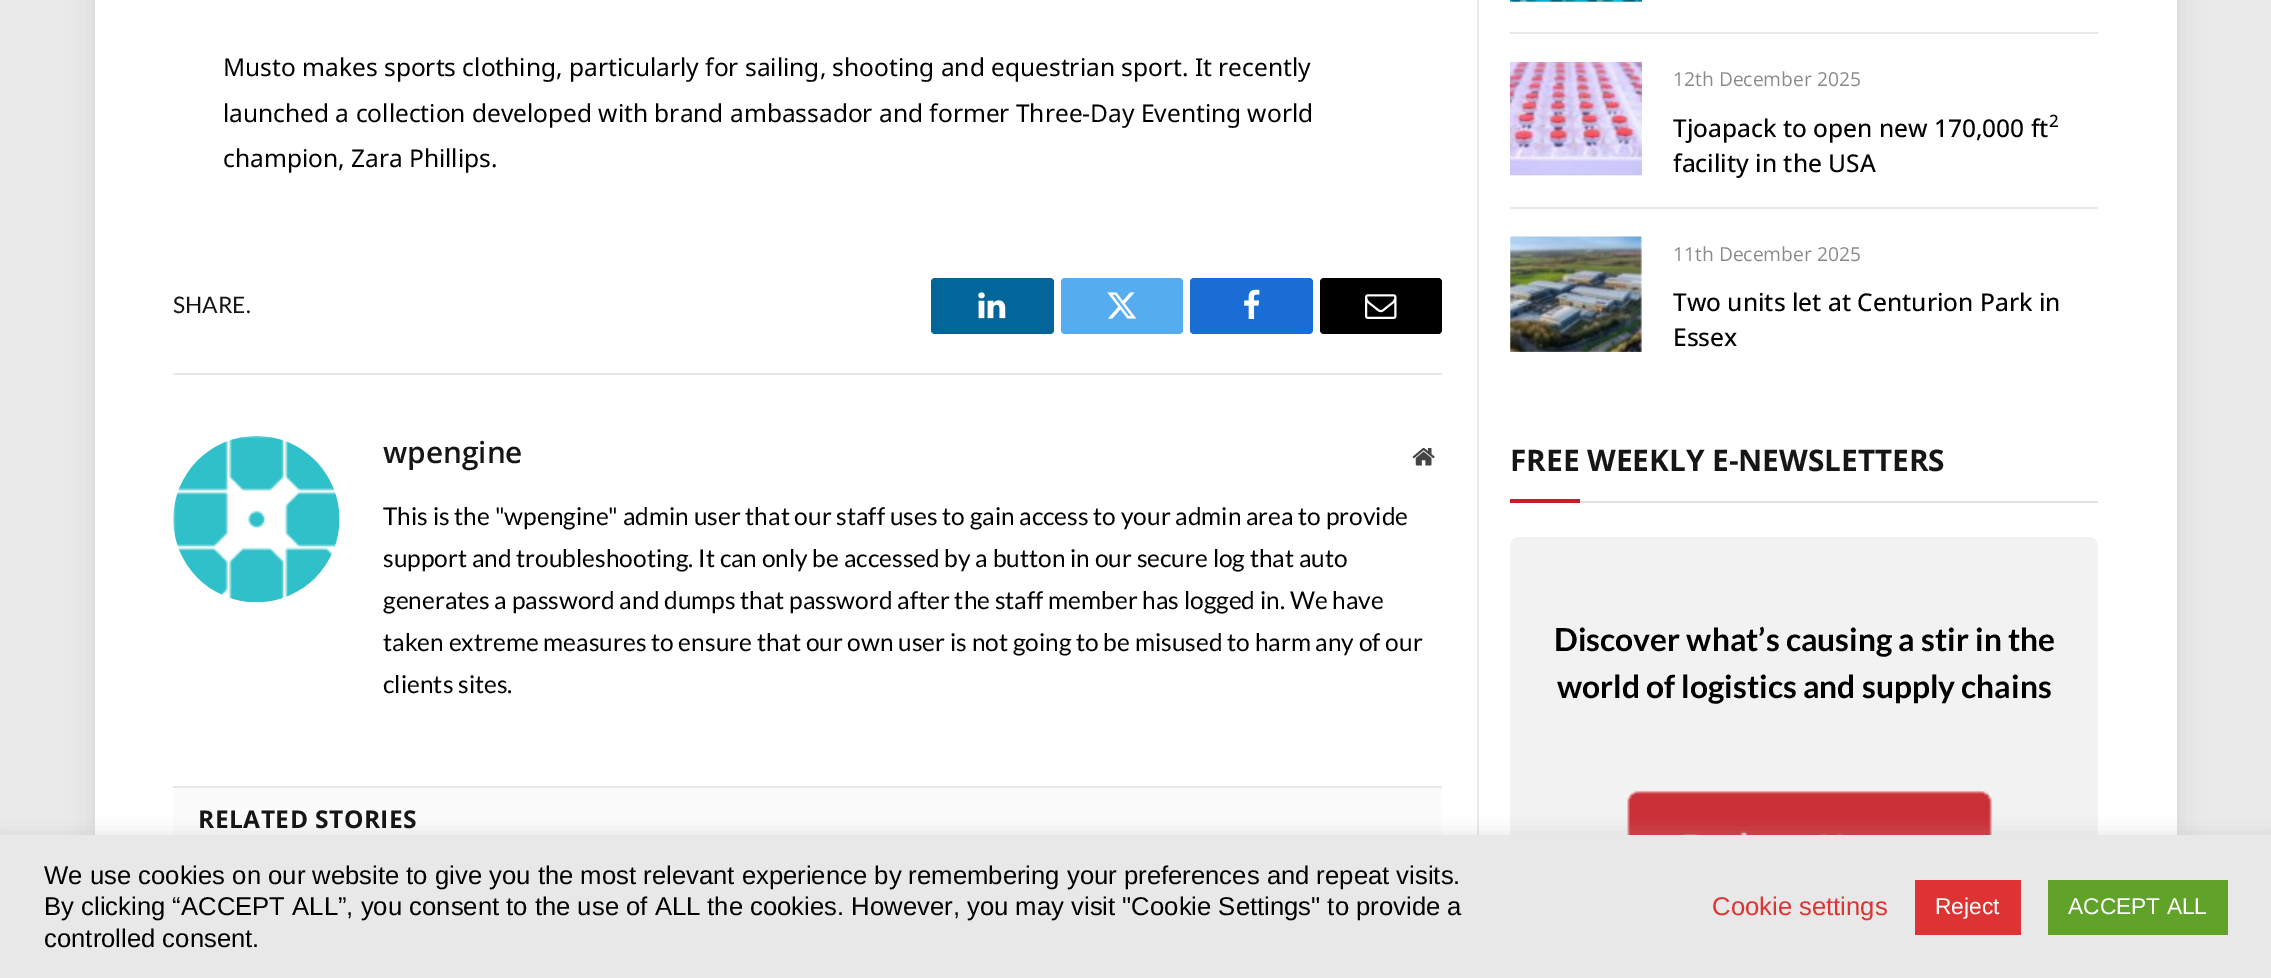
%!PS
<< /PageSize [2271 978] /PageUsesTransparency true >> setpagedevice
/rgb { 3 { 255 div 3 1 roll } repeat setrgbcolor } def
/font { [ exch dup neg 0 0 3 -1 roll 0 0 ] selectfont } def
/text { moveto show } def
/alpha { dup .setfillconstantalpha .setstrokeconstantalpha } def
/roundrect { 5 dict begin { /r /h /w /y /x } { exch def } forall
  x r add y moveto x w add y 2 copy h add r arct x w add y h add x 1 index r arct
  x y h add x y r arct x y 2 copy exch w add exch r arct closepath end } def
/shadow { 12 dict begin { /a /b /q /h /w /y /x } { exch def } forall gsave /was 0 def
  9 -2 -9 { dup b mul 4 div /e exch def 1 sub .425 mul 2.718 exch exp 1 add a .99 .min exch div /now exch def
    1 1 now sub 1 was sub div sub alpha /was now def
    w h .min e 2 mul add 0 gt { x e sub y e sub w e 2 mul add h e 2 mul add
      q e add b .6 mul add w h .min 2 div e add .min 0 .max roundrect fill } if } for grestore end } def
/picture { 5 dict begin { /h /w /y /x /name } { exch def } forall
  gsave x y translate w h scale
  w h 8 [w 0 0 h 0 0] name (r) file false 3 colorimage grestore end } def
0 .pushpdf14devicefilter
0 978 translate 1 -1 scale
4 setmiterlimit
234 234 234 rgb
0 0 2271 978 rectfill
0 0 0 rgb
95 -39 2082 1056 0 13 0.08 shadow
255 255 255 rgb
95 0 2082 835 rectfill
2 102 154 rgb
931 278 123 56 4 roundrect fill
(img_01.rgb) 978 292 28 27 picture
85 172 239 rgb
1061 278 122 56 4 roundrect fill
(img_02.rgb) 1107 292 30 27 picture
26 109 212 rgb
1190 278 123 56 4 roundrect fill
(img_03.rgb) 1244 289 16 30 picture
0 0 0 rgb
1320 278 122 56 4 roundrect fill
(img_04.rgb) 1365 294 32 25 picture
232 232 232 rgb
173 373 1269 2 rectfill
(img_05.rgb) 173 436 167 167 picture
(img_06.rgb) 1412 448 23 18 picture
251 251 251 rgb
173 788 1269 47 rectfill
232 232 232 rgb
173 786 1269 2 rectfill
1477 0 2 835 rectfill
(img_07.rgb) 1510 0 132 2 picture
1510 32 588 2 rectfill
(img_08.rgb) 1510 62 132 114 picture
1510 207 588 2 rectfill
(img_09.rgb) 1510 236 132 116 picture
226 226 226 rgb
1580 501 518 2 rectfill
196 32 39 rgb
1510 499 70 4 rectfill
242 242 242 rgb
1510 537 588 438 9 roundrect fill
(img_10.rgb) 1627 790 365 45 picture
172 171 171 rgb
0 833 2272 144 0 9 0.3 shadow
232 232 232 rgb
0 835 2271 143 rectfill
221 51 51 rgb
1915 880 106 55 rectfill
97 162 41 rgb
2048 880 180 55 rectfill
/NotoSans-Regular 24.5 font
0 0 0 rgb
(Musto makes sports clothing, particularly for sailing, shooting and equestrian sport. It recently) 223 76 text
(launched a collection developed with brand ambassador and former Three-Day Eventing world) 223 122 text
(champion, Zara Phillips.) 223 167 text
/Lato-Regular 22.75 font
22 22 22 rgb
(SHARE.) 173 313 text
/OpenSans-SemiBold 29.75 font
(wpengine) 383 463 text
/Lato-Regular 24.5 font
0 0 0 rgb
(This is the "wpengine" admin user that our staff uses to gain access to your admin area to provide) 383 525 text
(support and troubleshooting. It can only be accessed by a button in our secure log that auto) 383 567 text
(generates a password and dumps that password after the staff member has logged in. We have) 383 609 text
(taken extreme measures to ensure that our own user is not going to be misused to harm any of our) 383 651 text
(clients sites.) 383 693 text
/OpenSans-Bold 24.5 font
22 22 22 rgb
198 828 moveto 0.5 0 (RELATED STORIES) ashow
/OpenSans-Regular 19.25 font
138 138 138 rgb
(12th December 2025) 1673 86 text
/OpenSans-Medium 24.5 font
0 0 0 rgb
(Tjoapack to open new 170,000 ft) 1673 137 text
/OpenSans-Medium 17 font
(2) 2049 127 text
/OpenSans-Medium 24.5 font
(facility in the USA) 1673 172 text
/OpenSans-Regular 19.25 font
138 138 138 rgb
(11th December 2025) 1673 261 text
/OpenSans-Medium 24.5 font
0 0 0 rgb
(Two units let at Centurion Park in) 1673 311 text
(Essex) 1673 346 text
/OpenSans-Bold 29.75 font
22 22 22 rgb
(FREE WEEKLY E-NEWSLETTERS) 1510 471 text
/Lato-Bold 31.75 font
0 0 0 rgb
(Discover what’s causing a stir in the) 1554 651 text
(world of logistics and supply chains) 1557 698 text
/LiberationSans-Regular 25.67 font
(We use cookies on our website to give you the most relevant experience by remembering your preferences and repeat visits.) 44 884 text
(By clicking “ACCEPT ALL”, you consent to the use of ALL the cookies. However, you may visit "Cookie Settings" to provide a) 44 915 text
(controlled consent.) 44 947 text
221 51 51 rgb
(Cookie settings) 1712 915 text
/LiberationSans-Regular 22.75 font
255 255 255 rgb
(Reject) 1935 914 text
(ACCEPT ALL) 2068 914 text
.poppdf14devicefilter showpage
